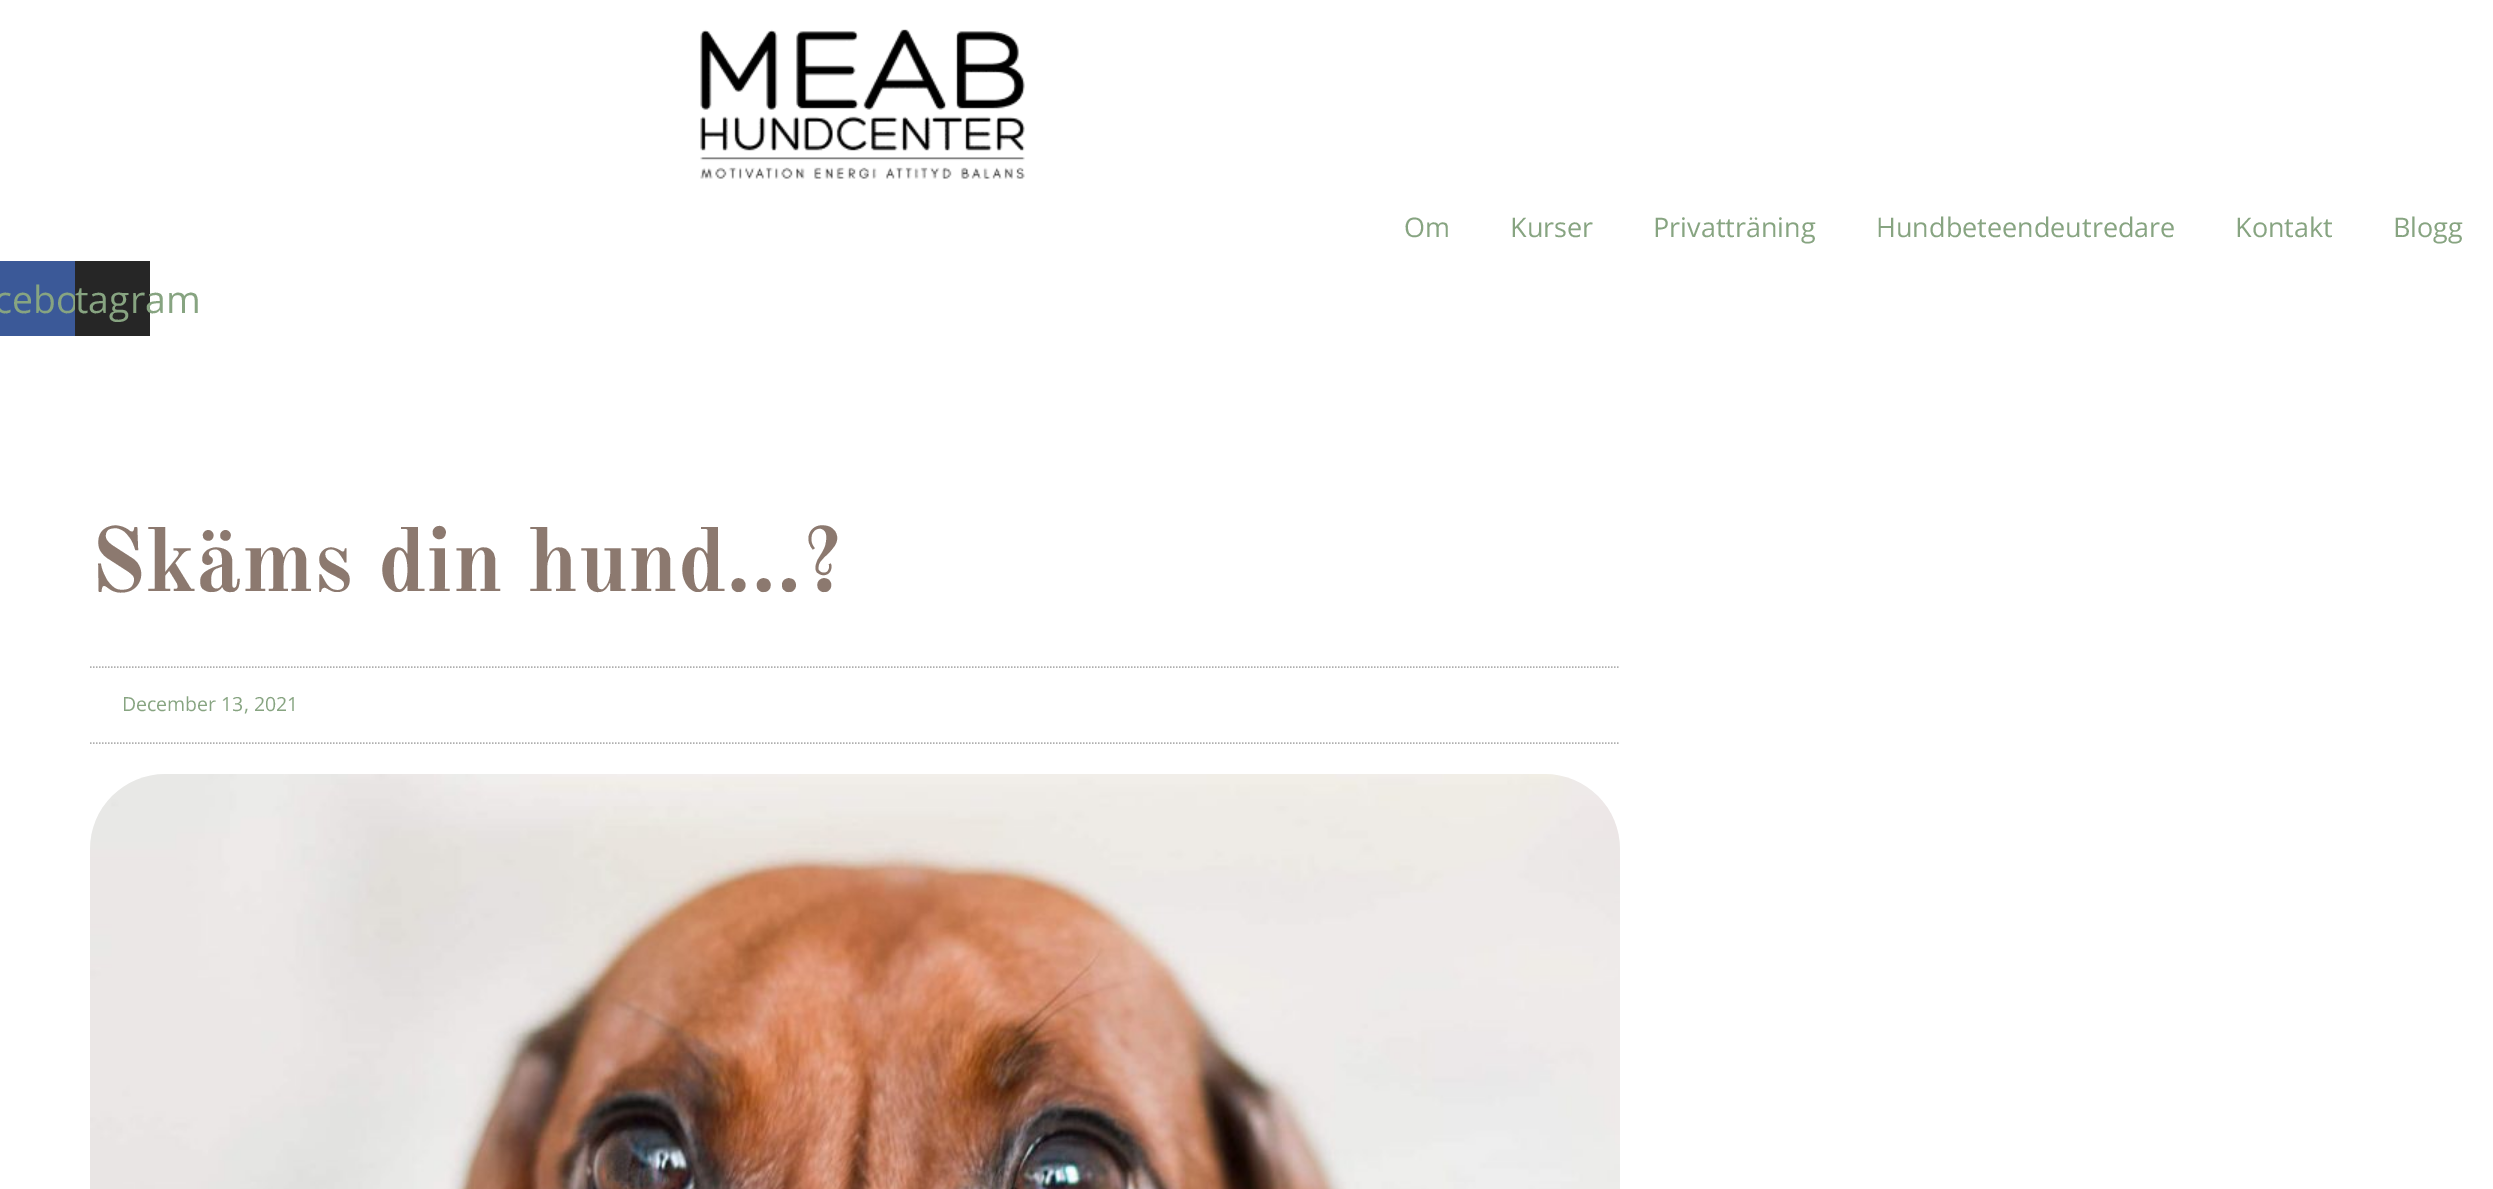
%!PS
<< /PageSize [2493 1189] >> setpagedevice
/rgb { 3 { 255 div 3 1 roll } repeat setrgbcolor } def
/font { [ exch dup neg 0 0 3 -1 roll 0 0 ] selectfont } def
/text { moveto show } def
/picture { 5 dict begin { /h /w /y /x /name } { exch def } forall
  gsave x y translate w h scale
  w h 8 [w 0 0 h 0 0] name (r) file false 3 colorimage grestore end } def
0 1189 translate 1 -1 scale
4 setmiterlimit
255 255 255 rgb
0 0 2493 1189 rectfill
(img_01.rgb) 700 29 325 150 picture
59 89 152 rgb
0 261 75 75 rectfill
175 175 175 rgb
1.5 setlinewidth
[1.5 1.5] 0 setdash
90 667 moveto 1530 0 rlineto stroke
90 743 moveto 1530 0 rlineto stroke
(img_02.rgb) 90 774 1530 415 picture
/OpenSans-Regular 27 font
135 164 129 rgb
(Om) 1404 237 text
(Kurser) 1510 237 text
(Privatträning) 1653 237 text
(Hundbeteendeutredare) 1876 237 text
(Kontakt) 2235 237 text
(Blogg) 2393 237 text
/OpenSans-Regular 37.5 font
(cebo) -6 313 text
38 38 38 rgb
75 261 75 75 rectfill
135 164 129 rgb
(tagram) 75 313 text
/OldStandardTT-Bold 90 font
140 121 111 rgb
(Skäms din hund…?) 90 591 text
/OpenSans-Regular 19.5 font
135 164 129 rgb
(December 13, 2021) 122 711 text
showpage
